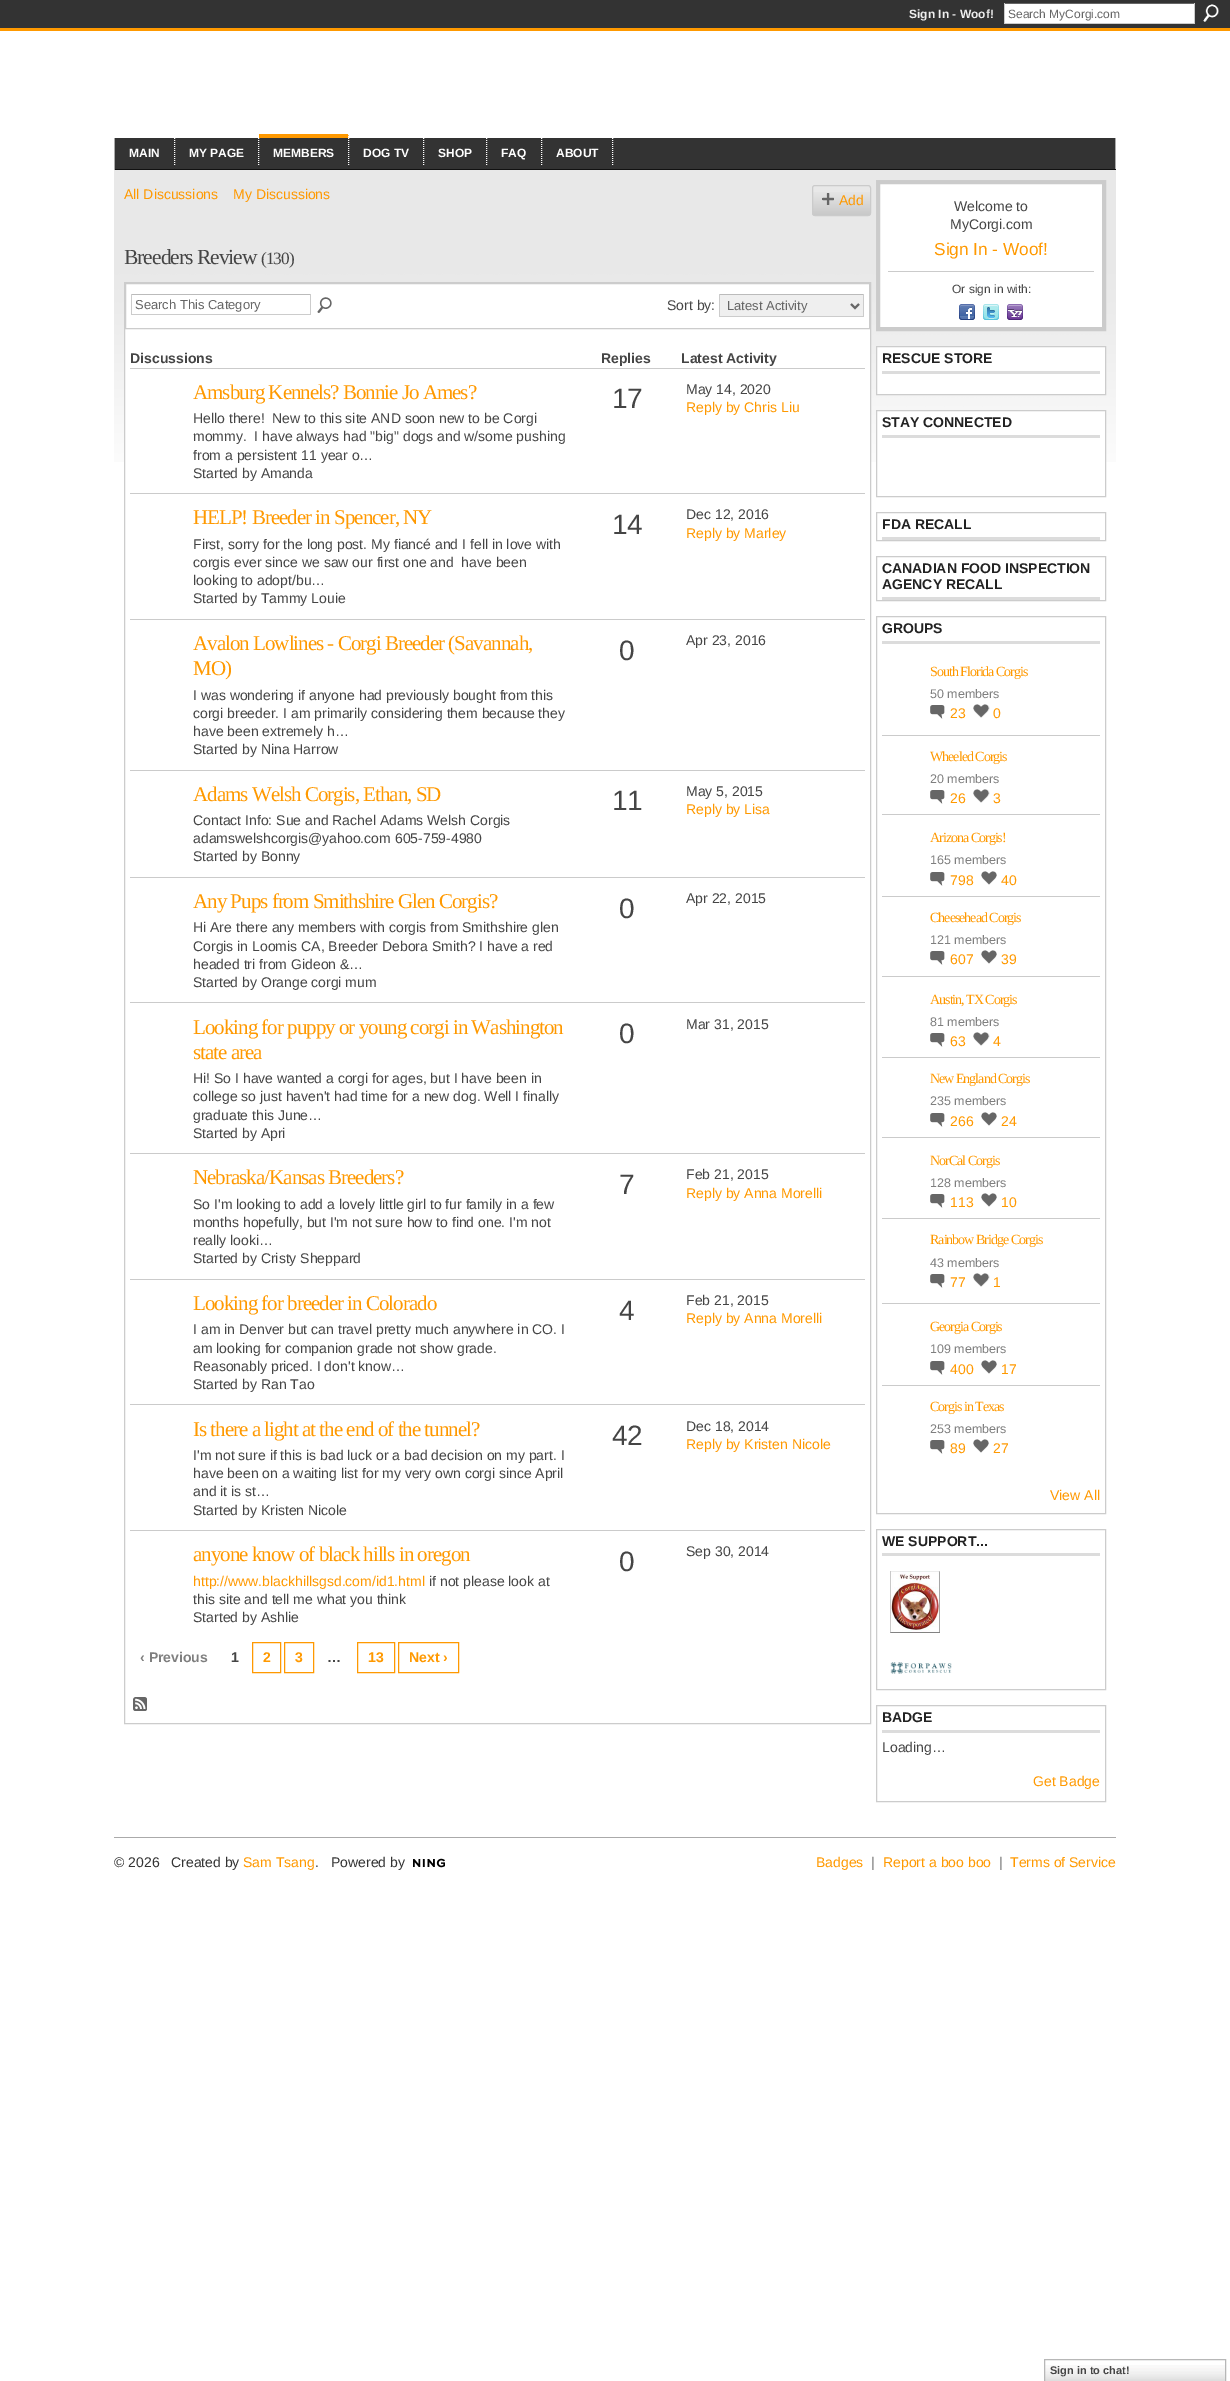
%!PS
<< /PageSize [1230 2381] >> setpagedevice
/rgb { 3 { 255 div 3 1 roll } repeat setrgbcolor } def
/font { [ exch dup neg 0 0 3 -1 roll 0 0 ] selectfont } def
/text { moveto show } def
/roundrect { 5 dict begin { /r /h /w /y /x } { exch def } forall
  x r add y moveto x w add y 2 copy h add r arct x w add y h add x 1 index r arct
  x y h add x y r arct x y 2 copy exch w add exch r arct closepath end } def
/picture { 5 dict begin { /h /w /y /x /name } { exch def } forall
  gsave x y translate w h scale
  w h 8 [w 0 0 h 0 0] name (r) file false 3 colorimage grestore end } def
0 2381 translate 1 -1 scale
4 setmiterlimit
255 255 255 rgb
0 0 1230 2381 rectfill
51 51 51 rgb
0 0 1230 28 rectfill
255 255 255 rgb
1005 4 189 19 rectfill
102 102 102 rgb
1004 3 191 1 rectfill
204 204 204 rgb
1194 3 1 21 rectfill
1004 23 191 1 rectfill
1004 3 1 21 rectfill
(img_01.rgb) 1203 4 16 18 picture
255 153 0 rgb
0 28 1230 3 rectfill
51 51 51 rgb
115 138 1000 31 rectfill
170 170 170 rgb
1115 138 1 32 rectfill
17 17 17 rgb
114 169 1002 1 rectfill
170 170 170 rgb
114 138 1 32 rectfill
255 255 255 rgb
[1 1] 0 setdash
174.5 134 moveto 0 31 rlineto stroke
258.5 134 moveto 0 31 rlineto stroke
255 153 0 rgb
259 134 moveto 90 0 rlineto -1 4 rlineto -89 0 rlineto closepath fill
255 255 255 rgb
348.5 134 moveto 0 31 rlineto stroke
423.5 134 moveto 0 31 rlineto stroke
486.5 134 moveto 0 31 rlineto stroke
541.5 134 moveto 0 31 rlineto stroke
612.5 134 moveto 0 31 rlineto stroke
(img_02.rgb) 114 170 1002 292 picture
(img_03.rgb) 812 192 59 24 picture
203 203 203 rgb
[] 0 setdash
812.5 185.5 58 30 2.5 roundrect stroke
(img_04.rgb) 822 193 12 12 picture
255 255 255 rgb
125 284 745 178 rectfill
204 204 204 rgb
124.5 282.5 746 1441 rectstroke
125.5 283.5 744 45 rectstroke
187 187 187 rgb
131 294 180 1 rectfill
204 204 204 rgb
310 294 1 21 rectfill
131 314 180 1 rectfill
131 294 1 21 rectfill
(img_05.rgb) 317 297 15 16 picture
239 239 239 rgb
720 295 143 21 rectfill
187 187 187 rgb
719 294 145 1 rectfill
204 204 204 rgb
863 294 1 23 rectfill
719 316 145 1 rectfill
719 294 1 23 rectfill
102 102 102 rgb
2 setlinewidth
851 304 moveto 4 4 rlineto 4 -4 rlineto stroke
203 203 203 rgb
130 368 735 1 rectfill
130 493 735 1 rectfill
130 619 735 1 rectfill
130 770 735 1 rectfill
130 877 735 1 rectfill
130 1002 735 1 rectfill
130 1153 735 1 rectfill
130 1279 735 1 rectfill
130 1404 735 1 rectfill
130 1530 735 1 rectfill
255 153 0 rgb
1 setlinewidth
252.5 1642.5 28 30 rectstroke
284.5 1642.5 29 30 rectstroke
357.5 1642.5 37 30 rectstroke
398.5 1642.5 60 30 rectstroke
(img_06.rgb) 133 1697 14 14 picture
255 255 255 rgb
880 184 222 143 rectfill
204 204 204 rgb
876.5 180.5 229 150 rectstroke
203 203 203 rgb
3 setlinewidth
878.5 182.5 225 146 rectstroke
888 271 206 1 rectfill
(img_07.rgb) 959 304 16 16 picture
(img_08.rgb) 983 304 16 16 picture
(img_09.rgb) 1007 304 16 16 picture
255 255 255 rgb
876.5 346.5 moveto 229 0 rlineto 0 48 rlineto -229 0 rlineto closepath gsave fill grestore
204 204 204 rgb
1 setlinewidth
stroke
220 220 220 rgb
882 371 218 3 rectfill
255 255 255 rgb
877 411 228 51 rectfill
204 204 204 rgb
876.5 410.5 229 86 rectstroke
220 220 220 rgb
882 435 218 3 rectfill
204 204 204 rgb
876.5 512.5 229 28 rectstroke
220 220 220 rgb
882 537 218 3 rectfill
204 204 204 rgb
876.5 556.5 229 44 rectstroke
220 220 220 rgb
882 597 218 3 rectfill
204 204 204 rgb
876.5 616.5 229 897 rectstroke
220 220 220 rgb
882 641 218 3 rectfill
203 203 203 rgb
882 735 218 1 rectfill
(img_10.rgb) 930 705 15 14 picture
(img_11.rgb) 973 704 17 14 picture
882 814 218 1 rectfill
(img_10.rgb) 930 790 15 14 picture
(img_11.rgb) 973 789 17 14 picture
882 896 218 1 rectfill
(img_10.rgb) 930 872 15 14 picture
(img_12.rgb) 981 871 16 14 picture
882 976 218 1 rectfill
(img_10.rgb) 930 951 15 14 picture
(img_12.rgb) 981 950 16 14 picture
882 1057 218 1 rectfill
(img_10.rgb) 930 1033 15 14 picture
(img_11.rgb) 973 1032 17 14 picture
882 1137 218 1 rectfill
(img_10.rgb) 930 1113 15 14 picture
(img_12.rgb) 981 1112 16 14 picture
882 1218 218 1 rectfill
(img_10.rgb) 930 1194 15 14 picture
(img_12.rgb) 981 1193 16 14 picture
882 1303 218 1 rectfill
(img_10.rgb) 930 1274 15 14 picture
(img_11.rgb) 973 1273 17 14 picture
882 1385 218 1 rectfill
(img_10.rgb) 930 1361 15 14 picture
(img_12.rgb) 981 1360 16 14 picture
(img_10.rgb) 930 1440 15 14 picture
(img_12.rgb) 973 1439 16 14 picture
204 204 204 rgb
876.5 1529.5 229 160 rectstroke
220 220 220 rgb
882 1553 218 3 rectfill
(img_13.rgb) 890 1571 50 62 picture
(img_14.rgb) 890 1662 62 12 picture
204 204 204 rgb
876.5 1705.5 229 96 rectstroke
220 220 220 rgb
882 1730 218 3 rectfill
170 170 170 rgb
114 1837 1002 1 rectfill
(img_15.rgb) 413 1858 32 10 picture
(img_16.rgb) 1045 2365 180 16 picture
183 183 183 rgb
1044.5 2359.5 181 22 rectstroke
/LiberationSans-Bold 12 font
238 238 238 rgb
(Sign In - Woof!) 909 18 text
/LiberationSans-Regular 12 font
102 102 102 rgb
(Search MyCorgi.com) 1008 18 text
/LiberationSans-Bold 12 font
255 255 255 rgb
(MAIN) 129 157 text
(MY PAGE) 189 157 text
(MEMBERS) 273 157 text
(DOG TV) 363 157 text
(SHOP) 438 157 text
(FAQ) 501 157 text
(ABOUT) 556 157 text
/LiberationSans-Regular 14 font
255 153 0 rgb
(All Discussions) 124 199 text
(My Discussions) 233 199 text
(Add) 839 205 text
/LiberationSerif-Regular 21.5 font
69 69 69 rgb
124 264 moveto -1 0 (Breeders Review) ashow
/LiberationSerif-Regular 17.25 font
261 264 moveto -1 0 (\(130\)) ashow
/LiberationSans-Regular 13 font
102 102 102 rgb
(Search This Category) 135 309 text
/LiberationSans-Regular 14 font
69 69 69 rgb
(Sort by:) 667 310 text
/LiberationSans-Regular 13 font
102 102 102 rgb
(Latest Activity) 727 310 text
/LiberationSans-Bold 14 font
69 69 69 rgb
(Discussions) 130 363 text
(Replies) 601 363 text
(Latest Activity) 681 363 text
/LiberationSerif-Regular 21 font
255 153 0 rgb
193 399 moveto -1 0 (Amsburg Kennels? Bonnie Jo Ames?) ashow
/LiberationSans-Regular 14 font
69 69 69 rgb
(Hello there!  New to this site AND soon new to be Corgi) 193 423 text
(mommy.  I have always had "big" dogs and w/some pushing) 193 441 text
(from a persistent 11 year o…) 193 460 text
(Started by Amanda) 193 478 text
/LiberationSans-Regular 28 font
612 408 moveto -1 0 (17) ashow
/LiberationSans-Regular 14 font
(May 14, 2020) 686 394 text
255 153 0 rgb
(Reply by Chris Liu) 686 412 text
/LiberationSerif-Regular 21 font
193 524 moveto -1 0 (HELP! Breeder in Spencer, NY) ashow
/LiberationSans-Regular 14 font
69 69 69 rgb
(First, sorry for the long post. My fiancé and I fell in love with) 193 549 text
(corgis ever since we saw our first one and  have been) 193 567 text
(looking to adopt/bu…) 193 585 text
(Started by Tammy Louie) 193 603 text
/LiberationSans-Regular 28 font
612 534 moveto -1 0 (14) ashow
/LiberationSans-Regular 14 font
(Dec 12, 2016) 686 519 text
255 153 0 rgb
(Reply by Marley) 686 538 text
/LiberationSerif-Regular 21 font
193 650 moveto -1 0 (Avalon Lowlines - Corgi Breeder \(Savannah,) ashow
193 675 moveto -1 0 (MO\)) ashow
/LiberationSans-Regular 14 font
69 69 69 rgb
(I was wondering if anyone had previously bought from this) 193 700 text
(corgi breeder. I am primarily considering them because they) 193 718 text
(have been extremely h…) 193 736 text
(Started by Nina Harrow) 193 754 text
/LiberationSans-Regular 28 font
619 660 moveto -1 0 (0) ashow
/LiberationSans-Regular 14 font
(Apr 23, 2016) 686 645 text
/LiberationSerif-Regular 21 font
255 153 0 rgb
193 801 moveto -1 0 (Adams Welsh Corgis, Ethan, SD) ashow
/LiberationSans-Regular 14 font
69 69 69 rgb
(Contact Info: Sue and Rachel Adams Welsh Corgis) 193 825 text
(adamswelshcorgis@yahoo.com 605-759-4980) 193 843 text
(Started by Bonny) 193 861 text
/LiberationSans-Regular 28 font
612 810 moveto -1 0 (11) ashow
/LiberationSans-Regular 14 font
(May 5, 2015) 686 796 text
255 153 0 rgb
(Reply by Lisa) 686 814 text
/LiberationSerif-Regular 21 font
193 908 moveto -1 0 (Any Pups from Smithshire Glen Corgis?) ashow
/LiberationSans-Regular 14 font
69 69 69 rgb
(Hi Are there any members with corgis from Smithshire glen) 193 932 text
(Corgis in Loomis CA, Breeder Debora Smith? I have a red) 193 951 text
(headed tri from Gideon &…) 193 969 text
(Started by Orange corgi mum) 193 987 text
/LiberationSans-Regular 28 font
619 918 moveto -1 0 (0) ashow
/LiberationSans-Regular 14 font
(Apr 22, 2015) 686 903 text
/LiberationSerif-Regular 21 font
255 153 0 rgb
193 1034 moveto -1 0 (Looking for puppy or young corgi in Washington) ashow
193 1059 moveto -1 0 (state area) ashow
/LiberationSans-Regular 14 font
69 69 69 rgb
(Hi! So I have wanted a corgi for ages, but I have been in) 193 1083 text
(college so just haven't had time for a new dog. Well I finally) 193 1101 text
(graduate this June…) 193 1120 text
(Started by Apri) 193 1138 text
/LiberationSans-Regular 28 font
619 1043 moveto -1 0 (0) ashow
/LiberationSans-Regular 14 font
(Mar 31, 2015) 686 1029 text
/LiberationSerif-Regular 21 font
255 153 0 rgb
193 1184 moveto -1 0 (Nebraska/Kansas Breeders?) ashow
/LiberationSans-Regular 14 font
69 69 69 rgb
(So I'm looking to add a lovely little girl to fur family in a few) 193 1209 text
(months hopefully, but I'm not sure how to find one. I'm not) 193 1227 text
(really looki…) 193 1245 text
(Started by Cristy Sheppard) 193 1263 text
/LiberationSans-Regular 28 font
619 1194 moveto -1 0 (7) ashow
/LiberationSans-Regular 14 font
(Feb 21, 2015) 686 1179 text
255 153 0 rgb
(Reply by Anna Morelli) 686 1198 text
/LiberationSerif-Regular 21 font
193 1310 moveto -1 0 (Looking for breeder in Colorado) ashow
/LiberationSans-Regular 14 font
69 69 69 rgb
(I am in Denver but can travel pretty much anywhere in CO. I) 193 1334 text
(am looking for companion grade not show grade.) 193 1353 text
(Reasonably priced. I don't know…) 193 1371 text
(Started by Ran Tao) 193 1389 text
/LiberationSans-Regular 28 font
619 1320 moveto -1 0 (4) ashow
/LiberationSans-Regular 14 font
(Feb 21, 2015) 686 1305 text
255 153 0 rgb
(Reply by Anna Morelli) 686 1323 text
/LiberationSerif-Regular 21 font
193 1436 moveto -1 0 (Is there a light at the end of the tunnel?) ashow
/LiberationSans-Regular 14 font
69 69 69 rgb
(I'm not sure if this is bad luck or a bad decision on my part. I) 193 1460 text
(have been on a waiting list for my very own corgi since April) 193 1478 text
(and it is st…) 193 1496 text
(Started by Kristen Nicole) 193 1515 text
/LiberationSans-Regular 28 font
612 1445 moveto -1 0 (42) ashow
/LiberationSans-Regular 14 font
(Dec 18, 2014) 686 1431 text
255 153 0 rgb
(Reply by Kristen Nicole) 686 1449 text
/LiberationSerif-Regular 21 font
193 1561 moveto -1 0 (anyone know of black hills in oregon) ashow
/LiberationSans-Regular 14 font
(http://www.blackhillsgsd.com/id1.html) 193 1586 text
69 69 69 rgb
(if not please look at) 429 1586 text
(this site and tell me what you think) 193 1604 text
(Started by Ashlie) 193 1622 text
/LiberationSans-Regular 28 font
619 1571 moveto -1 0 (0) ashow
/LiberationSans-Regular 14 font
(Sep 30, 2014) 686 1556 text
/LiberationSans-Bold 14 font
127 127 127 rgb
(‹ Previous) 140 1662 text
69 69 69 rgb
(1) 231 1662 text
255 153 0 rgb
(2) 263 1662 text
(3) 295 1662 text
69 69 69 rgb
(…) 327 1662 text
255 153 0 rgb
(13) 368 1662 text
(Next ›) 409 1662 text
/LiberationSans-Regular 14 font
69 69 69 rgb
(Welcome to) 954 211 text
(MyCorgi.com) 950 229 text
/LiberationSans-Regular 17.25 font
255 153 0 rgb
(Sign In - Woof!) 934 255 text
/LiberationSans-Regular 12 font
69 69 69 rgb
(Or sign in with:) 952 293 text
/LiberationSans-Bold 14 font
34 34 34 rgb
(RESCUE STORE) 882 363 text
(STAY CONNECTED) 882 427 text
(FDA RECALL) 882 529 text
(CANADIAN FOOD INSPECTION) 882 573 text
(AGENCY RECALL) 882 589 text
(GROUPS) 882 633 text
/LiberationSerif-Regular 14 font
255 153 0 rgb
930 676 moveto -1 0 (South Florida Corgis) ashow
/LiberationSans-Regular 12.5 font
127 127 127 rgb
(50 members) 930 698 text
/LiberationSans-Regular 14 font
255 153 0 rgb
(23) 950 718 text
(0) 993 718 text
/LiberationSerif-Regular 14 font
930 761 moveto -1 0 (Wheeled Corgis) ashow
/LiberationSans-Regular 12.5 font
127 127 127 rgb
(20 members) 930 783 text
/LiberationSans-Regular 14 font
255 153 0 rgb
(26) 950 803 text
(3) 993 803 text
/LiberationSerif-Regular 14 font
930 842 moveto -1 0 (Arizona Corgis!) ashow
/LiberationSans-Regular 12.5 font
127 127 127 rgb
(165 members) 930 864 text
/LiberationSans-Regular 14 font
255 153 0 rgb
(798) 950 885 text
(40) 1001 885 text
/LiberationSerif-Regular 14 font
930 922 moveto -1 0 (Cheesehead Corgis) ashow
/LiberationSans-Regular 12.5 font
127 127 127 rgb
(121 members) 930 944 text
/LiberationSans-Regular 14 font
255 153 0 rgb
(607) 950 964 text
(39) 1001 964 text
/LiberationSerif-Regular 14 font
930 1004 moveto -1 0 (Austin, TX Corgis) ashow
/LiberationSans-Regular 12.5 font
127 127 127 rgb
(81 members) 930 1026 text
/LiberationSans-Regular 14 font
255 153 0 rgb
(63) 950 1046 text
(4) 993 1046 text
/LiberationSerif-Regular 14 font
930 1083 moveto -1 0 (New England Corgis) ashow
/LiberationSans-Regular 12.5 font
127 127 127 rgb
(235 members) 930 1105 text
/LiberationSans-Regular 14 font
255 153 0 rgb
(266) 950 1126 text
(24) 1001 1126 text
/LiberationSerif-Regular 14 font
930 1165 moveto -1 0 (NorCal Corgis) ashow
/LiberationSans-Regular 12.5 font
127 127 127 rgb
(128 members) 930 1187 text
/LiberationSans-Regular 14 font
255 153 0 rgb
(113) 950 1207 text
(10) 1001 1207 text
/LiberationSerif-Regular 14 font
930 1244 moveto -1 0 (Rainbow Bridge Corgis) ashow
/LiberationSans-Regular 12.5 font
127 127 127 rgb
(43 members) 930 1267 text
/LiberationSans-Regular 14 font
255 153 0 rgb
(77) 950 1287 text
(1) 993 1287 text
/LiberationSerif-Regular 14 font
930 1331 moveto -1 0 (Georgia Corgis) ashow
/LiberationSans-Regular 12.5 font
127 127 127 rgb
(109 members) 930 1353 text
/LiberationSans-Regular 14 font
255 153 0 rgb
(400) 950 1374 text
(17) 1001 1374 text
/LiberationSerif-Regular 14 font
930 1411 moveto -1 0 (Corgis in Texas) ashow
/LiberationSans-Regular 12.5 font
127 127 127 rgb
(253 members) 930 1433 text
/LiberationSans-Regular 14 font
255 153 0 rgb
(89) 950 1453 text
(27) 993 1453 text
(View All) 1050 1500 text
/LiberationSans-Bold 14 font
34 34 34 rgb
(WE SUPPORT...) 882 1546 text
(BADGE) 882 1722 text
/LiberationSans-Regular 14 font
69 69 69 rgb
(Loading…) 882 1752 text
255 153 0 rgb
(Get Badge) 1033 1786 text
51 51 51 rgb
(© 2026) 114 1867 text
(Created by) 171 1867 text
255 153 0 rgb
(Sam Tsang) 243 1867 text
51 51 51 rgb
(.) 315 1867 text
(Powered by) 331 1867 text
255 153 0 rgb
(Badges) 816 1867 text
127 127 127 rgb
(|) 871 1867 text
255 153 0 rgb
(Report a boo boo) 883 1867 text
127 127 127 rgb
(|) 999 1867 text
255 153 0 rgb
(Terms of Service) 1010 1867 text
/LiberationSans-Bold 11 font
69 69 69 rgb
(Sign in to chat!) 1050 2374 text
showpage
